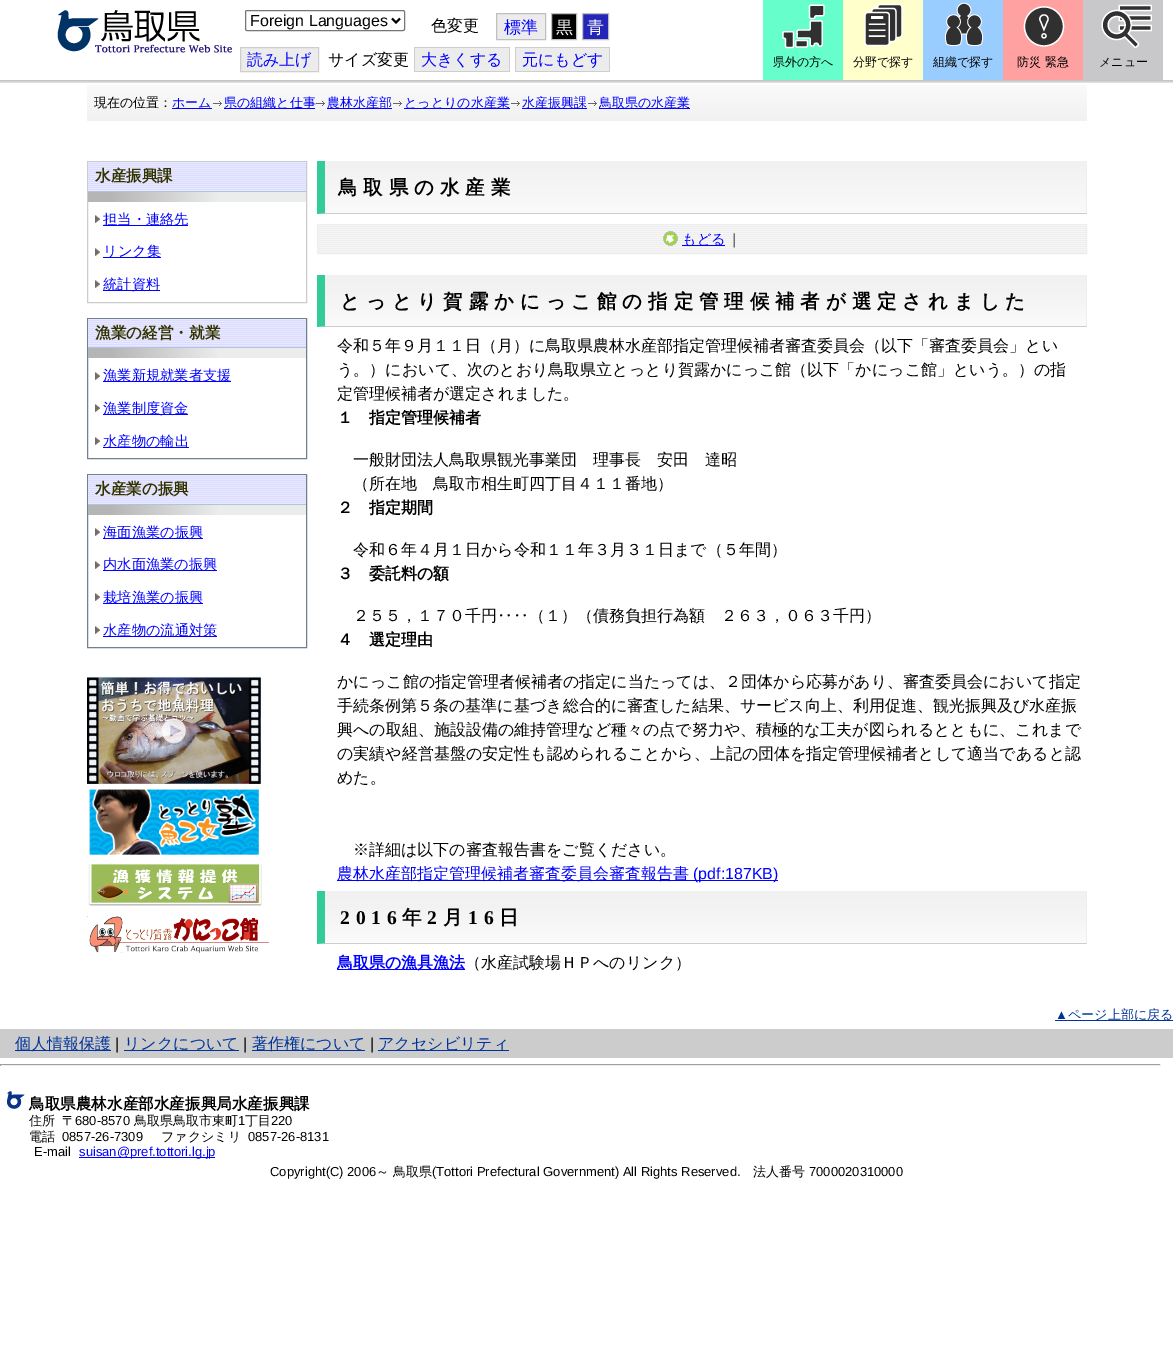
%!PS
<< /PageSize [1173 1369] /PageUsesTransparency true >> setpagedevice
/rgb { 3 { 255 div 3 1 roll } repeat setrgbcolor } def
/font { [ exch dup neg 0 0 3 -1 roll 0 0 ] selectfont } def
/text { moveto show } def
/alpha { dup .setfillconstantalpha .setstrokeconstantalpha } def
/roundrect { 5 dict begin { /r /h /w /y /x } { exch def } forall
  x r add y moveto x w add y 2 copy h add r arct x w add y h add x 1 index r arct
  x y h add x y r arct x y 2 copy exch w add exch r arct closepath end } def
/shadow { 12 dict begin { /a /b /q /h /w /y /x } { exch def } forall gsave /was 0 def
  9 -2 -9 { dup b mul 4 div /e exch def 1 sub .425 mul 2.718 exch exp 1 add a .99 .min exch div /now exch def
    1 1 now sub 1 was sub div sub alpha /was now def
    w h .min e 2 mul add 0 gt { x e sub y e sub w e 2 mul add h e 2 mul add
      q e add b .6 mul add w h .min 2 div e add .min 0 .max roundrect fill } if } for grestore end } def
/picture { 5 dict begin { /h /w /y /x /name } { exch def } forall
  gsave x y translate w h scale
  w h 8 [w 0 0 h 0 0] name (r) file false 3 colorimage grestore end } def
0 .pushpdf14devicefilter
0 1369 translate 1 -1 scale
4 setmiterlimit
255 255 255 rgb
0 0 1173 1369 rectfill
gsave 87 85 moveto 1000 0 rlineto 0 36 rlineto -1000 0 rlineto closepath clip newpath
<< /ShadingType 2 /ColorSpace /DeviceRGB /Coords [587 85 587 121] /Extend [true true] /Function << /FunctionType 2 /Domain [0 1] /C0 [0.98 0.98 0.98] /C1 [0.945 0.945 0.945] /N 1 >> >> shfill grestore
gsave
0 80 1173 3 rectclip
0 0 0 rgb
-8 1 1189 80 0 2.5 0.1 shadow
-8 1 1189 80 0 2.5 0.1 shadow
-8 1 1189 80 0 2.5 0.1 shadow
-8 1 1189 80 0 2.5 0.1 shadow
grestore
(img_01.rgb) 57 10 175 43 picture
118 118 118 rgb
245.5 10.5 159 20 1.5 roundrect stroke
0 0 0 rgb
2 setlinewidth
392 18.5 moveto 4 4 rlineto 4 -4 rlineto stroke
236 236 236 rgb
496.5 13.5 moveto 49 0 rlineto 0 26 rlineto -49 0 rlineto closepath gsave fill grestore
191 191 191 rgb
1 setlinewidth
stroke
0 0 0 rgb
551.5 13.5 moveto 25 0 rlineto 0 26 rlineto -25 0 rlineto closepath gsave fill grestore
191 191 191 rgb
stroke
37 37 184 rgb
582.5 13.5 moveto 26 0 rlineto 0 26 rlineto -26 0 rlineto closepath gsave fill grestore
191 191 191 rgb
stroke
236 236 236 rgb
240.5 47.5 moveto 78 0 rlineto 0 24 rlineto -78 0 rlineto closepath gsave fill grestore
206 206 206 rgb
stroke
236 236 236 rgb
415 48 94 23 rectfill
206 206 206 rgb
414 47 96 1 rectfill
414 71 23 1 rectfill
414 47 1 25 rectfill
509 47 1 25 rectfill
437 71 73 1 rectfill
236 236 236 rgb
516 48 93 23 rectfill
206 206 206 rgb
515 47 95 1 rectfill
515 71 23 1 rectfill
515 47 1 25 rectfill
609 47 1 25 rectfill
538 71 72 1 rectfill
102 255 204 rgb
763 0 80 80 rectfill
(img_02.rgb) 782 4 43 45 picture
255 255 204 rgb
843 0 80 80 rectfill
(img_03.rgb) 864 3 39 44 picture
153 204 255 rgb
923 0 80 80 rectfill
(img_04.rgb) 945 2 39 44 picture
255 161 161 rgb
1003 0 80 80 rectfill
(img_05.rgb) 1023 6 42 41 picture
200 200 203 rgb
1083 0 80 80 rectfill
(img_06.rgb) 1101 4 51 44 picture
0 0 255 rgb
172 108 40 1 rectfill
(img_07.rgb) 213 101 9 5 picture
224 108 91 1 rectfill
(img_07.rgb) 316 101 9 5 picture
327 108 65 1 rectfill
(img_07.rgb) 393 101 9 5 picture
404 108 106 1 rectfill
(img_07.rgb) 511 101 9 5 picture
522 108 65 1 rectfill
(img_07.rgb) 588 101 9 5 picture
599 108 91 1 rectfill
204 204 204 rgb
87.5 161.5 219 141 rectstroke
(img_08.rgb) 88 162 218 29 picture
176 196 222 rgb
88 191 218 1 rectfill
gsave 88 192 moveto 218 0 rlineto 0 10 rlineto -218 0 rlineto closepath clip newpath
<< /ShadingType 2 /ColorSpace /DeviceRGB /Coords [88 197 306 197] /Extend [true true] /Function << /FunctionType 3 /Domain [0 1] /Functions [<< /FunctionType 2 /Domain [0 1] /C0 [0.71 0.71 0.71] /C1 [0.71 0.71 0.71] /N 1 >> << /FunctionType 2 /Domain [0 1] /C0 [0.71 0.71 0.71] /C1 [0.922 0.925 0.925] /N 1 >> << /FunctionType 2 /Domain [0 1] /C0 [0.922 0.925 0.925] /C1 [0.922 0.925 0.925] /N 1 >>] /Bounds [0.1 0.6] /Encode [0 1 0 1 0 1] >> >> shfill grestore
(img_09.rgb) 95 215 5 8 picture
0 0 255 rgb
103 225 85 1 rectfill
(img_09.rgb) 95 248 5 8 picture
103 257 58 1 rectfill
(img_09.rgb) 95 280 5 8 picture
103 290 57 1 rectfill
112 128 144 rgb
87.5 318.5 219 140 rectstroke
(img_10.rgb) 88 319 218 28 picture
176 196 222 rgb
88 347 218 1 rectfill
gsave 88 348 moveto 218 0 rlineto 0 10 rlineto -218 0 rlineto closepath clip newpath
<< /ShadingType 2 /ColorSpace /DeviceRGB /Coords [88 353 306 353] /Extend [true true] /Function << /FunctionType 3 /Domain [0 1] /Functions [<< /FunctionType 2 /Domain [0 1] /C0 [0.71 0.71 0.71] /C1 [0.71 0.71 0.71] /N 1 >> << /FunctionType 2 /Domain [0 1] /C0 [0.71 0.71 0.71] /C1 [0.922 0.925 0.925] /N 1 >> << /FunctionType 2 /Domain [0 1] /C0 [0.922 0.925 0.925] /C1 [0.922 0.925 0.925] /N 1 >>] /Bounds [0.1 0.6] /Encode [0 1 0 1 0 1] >> >> shfill grestore
(img_09.rgb) 95 372 5 8 picture
0 0 255 rgb
103 381 128 1 rectfill
(img_09.rgb) 95 404 5 8 picture
103 414 85 1 rectfill
(img_09.rgb) 95 437 5 8 picture
103 447 86 1 rectfill
112 128 144 rgb
87.5 474.5 219 173 rectstroke
(img_08.rgb) 88 475 218 29 picture
176 196 222 rgb
88 504 218 1 rectfill
gsave 88 505 moveto 218 0 rlineto 0 10 rlineto -218 0 rlineto closepath clip newpath
<< /ShadingType 2 /ColorSpace /DeviceRGB /Coords [88 510 306 510] /Extend [true true] /Function << /FunctionType 3 /Domain [0 1] /Functions [<< /FunctionType 2 /Domain [0 1] /C0 [0.71 0.71 0.71] /C1 [0.71 0.71 0.71] /N 1 >> << /FunctionType 2 /Domain [0 1] /C0 [0.71 0.71 0.71] /C1 [0.922 0.925 0.925] /N 1 >> << /FunctionType 2 /Domain [0 1] /C0 [0.922 0.925 0.925] /C1 [0.922 0.925 0.925] /N 1 >>] /Bounds [0.1 0.6] /Encode [0 1 0 1 0 1] >> >> shfill grestore
(img_09.rgb) 95 528 5 8 picture
0 0 255 rgb
103 538 100 1 rectfill
(img_09.rgb) 95 561 5 8 picture
103 570 114 1 rectfill
(img_09.rgb) 95 593 5 8 picture
103 603 100 1 rectfill
(img_09.rgb) 95 626 5 8 picture
103 636 114 1 rectfill
(img_11.rgb) 87 676 174 108 picture
(img_12.rgb) 89 789 170 66 picture
(img_13.rgb) 88 864 174 42 picture
(img_14.rgb) 87 916 182 37 picture
gsave 325 161 moveto 761 0 rlineto 0 52 rlineto -761 0 rlineto closepath clip newpath
<< /ShadingType 2 /ColorSpace /DeviceRGB /Coords [706 161 706 213] /Extend [true true] /Function << /FunctionType 2 /Domain [0 1] /C0 [0.945 0.945 0.945] /C1 [0.98 0.98 0.98] /N 1 >> >> shfill grestore
238 238 238 rgb
1086 161 1 53 rectfill
204 204 204 rgb
1087 214 moveto -770 0 rlineto 8 -1 rlineto 761 0 rlineto closepath fill
51 204 153 rgb
317 214 moveto 0 -53 rlineto 8 0 rlineto 0 52 rlineto closepath fill
(img_15.rgb) 318 225 768 28 picture
238 238 238 rgb
317.5 224.5 769 29 rectstroke
(img_16.rgb) 663 231 15 15 picture
0 0 255 rgb
682 245 43 1 rectfill
(img_17.rgb) 325 275 761 51 picture
238 238 238 rgb
1086 275 1 52 rectfill
204 204 204 rgb
1087 327 moveto -770 0 rlineto 8 -1 rlineto 761 0 rlineto closepath fill
51 204 153 rgb
317 327 moveto 0 -52 rlineto 8 0 rlineto 0 51 rlineto closepath fill
0 0 255 rgb
337 880 441 1 rectfill
(img_17.rgb) 325 891 761 51 picture
238 238 238 rgb
1086 891 1 53 rectfill
204 204 204 rgb
1087 944 moveto -770 0 rlineto 8 -1 rlineto 761 0 rlineto closepath fill
51 204 153 rgb
317 944 moveto 0 -53 rlineto 8 0 rlineto 0 52 rlineto closepath fill
0 0 255 rgb
337 969 128 1 rectfill
0 51 153 rgb
1055 1020 118 1 rectfill
204 204 204 rgb
0 1029 1173 29 rectfill
0 51 153 rgb
15 1050 96 1 rectfill
124 1050 115 1 rectfill
252 1050 113 1 rectfill
378 1050 131 1 rectfill
159 159 159 rgb
0 1064 1161 1 rectfill
238 238 238 rgb
1160 1064 1 2 rectfill
0 1065 1161 1 rectfill
159 159 159 rgb
0 1064 1 2 rectfill
(img_18.rgb) 7 1091 18 18 picture
0 0 255 rgb
79 1157 136 1 rectfill
/LiberationSans-Regular 16 font
0 0 0 rgb
(Foreign Languages) 250 26 text
/WenQuanYiZenHei-Medium 16 font
(色変更) 431 31 text
/WenQuanYiZenHei-Medium 17 font
0 0 255 rgb
(標準) 504 33 text
255 255 255 rgb
(黒) 556 33 text
(青) 587 33 text
/WenQuanYiZenHei-Medium 16 font
0 0 255 rgb
(読み上げ) 247 65 text
0 0 0 rgb
(サイズ変更) 328 65 text
0 0 255 rgb
(大きくする) 421 65 text
(元にもどす) 522 65 text
/WenQuanYiZenHei-Medium 12 font
0 0 0 rgb
(県外の方へ) 773 66 text
(分野で探す) 853 66 text
(組織で探す) 933 66 text
(防災 緊急) 1017 66 text
(メニュー) 1099 66 text
/WenQuanYiZenHei-Medium 13 font
(現在の位置：) 94 107 text
0 0 255 rgb
(ホーム) 172 107 text
(県の組織と仕事) 224 107 text
(農林水産部) 327 107 text
(とっとりの水産業) 404 107 text
(水産振興課) 522 107 text
(鳥取県の水産業) 599 107 text
/WenQuanYiZenHei-Bold 15.6 font
51 51 0 rgb
(水産振興課) 95 181 text
/WenQuanYiZenHei-Medium 14.25 font
0 0 255 rgb
(担当・連絡先) 103 224 text
(リンク集) 103 256 text
(統計資料) 103 289 text
/WenQuanYiZenHei-Bold 15.6 font
51 51 0 rgb
(漁業の経営・就業) 95 338 text
/WenQuanYiZenHei-Medium 14.25 font
0 0 255 rgb
(漁業新規就業者支援) 103 380 text
(漁業制度資金) 103 413 text
(水産物の輸出) 103 446 text
/WenQuanYiZenHei-Bold 15.6 font
51 51 0 rgb
(水産業の振興) 95 494 text
/WenQuanYiZenHei-Medium 14.25 font
0 0 255 rgb
(海面漁業の振興) 103 537 text
(内水面漁業の振興) 103 569 text
(栽培漁業の振興) 103 602 text
(水産物の流通対策) 103 635 text
/WenQuanYiZenHei-Bold 19.5 font
0 0 0 rgb
338 194 moveto 5.85 0 (鳥取県の水産業) ashow
/WenQuanYiZenHei-Medium 14.25 font
0 0 255 rgb
(もどる) 682 244 text
0 0 0 rgb
(｜) 727 244 text
/WenQuanYiZenHei-Bold 19.5 font
340 308 moveto 5.85 0 (とっとり賀露かにっこ館の指定管理候補者が選定されました) ashow
/WenQuanYiZenHei-Medium 16 font
(令和５年９月１１日（月）に鳥取県農林水産部指定管理候補者審査委員会（以下「審査委員会」とい) 337 351 text
(う。）において、次のとおり鳥取県立とっとり賀露かにっこ館（以下「かにっこ館」という。）の指) 337 375 text
(定管理候補者が選定されました。) 337 399 text
/WenQuanYiZenHei-Bold 16 font
(１　指定管理候補者) 337 423 text
/WenQuanYiZenHei-Medium 16 font
(一般財団法人鳥取県観光事業団　理事長　安田　達昭) 353 465 text
(（所在地　鳥取市相生町四丁目４１１番地）) 353 489 text
/WenQuanYiZenHei-Bold 16 font
(２　指定期間) 337 513 text
/WenQuanYiZenHei-Medium 16 font
(令和６年４月１日から令和１１年３月３１日まで（５年間）) 353 555 text
/WenQuanYiZenHei-Bold 16 font
(３　委託料の額) 337 579 text
/WenQuanYiZenHei-Medium 16 font
(２５５，１７０千円‥‥（１）（債務負担行為額　２６３，０６３千円）) 353 621 text
/WenQuanYiZenHei-Bold 16 font
(４　選定理由) 337 645 text
/WenQuanYiZenHei-Medium 16 font
(かにっこ館の指定管理者候補者の指定に当たっては、２団体から応募があり、審査委員会において指定) 337 687 text
(手続条例第５条の基準に基づき総合的に審査した結果、サービス向上、利用促進、観光振興及び水産振) 337 711 text
(興への取組、施設設備の維持管理など種々の点で努力や、積極的な工夫が図られるとともに、これまで) 337 735 text
(の実績や経営基盤の安定性も認められることから、上記の団体を指定管理候補者として適当であると認) 337 759 text
(めた。) 337 783 text
(※詳細は以下の審査報告書をご覧ください。) 353 855 text
0 0 255 rgb
(農林水産部指定管理候補者審査委員会審査報告書) 337 879 text
/LiberationSans-Regular 16 font
(\(pdf:187KB\)) 693 879 text
/LiberationSerif-Bold 19.5 font
0 0 0 rgb
340 924 moveto 5.85 0 (2016) ashow
/WenQuanYiZenHei-Bold 19.5 font
402 924 moveto 5.85 0 (年) ashow
/LiberationSerif-Bold 19.5 font
427 924 moveto 5.85 0 (2) ashow
/WenQuanYiZenHei-Bold 19.5 font
443 924 moveto 5.85 0 (月) ashow
/LiberationSerif-Bold 19.5 font
468 924 moveto 5.85 0 (16) ashow
/WenQuanYiZenHei-Bold 19.5 font
499 924 moveto 5.85 0 (日) ashow
/WenQuanYiZenHei-Bold 16 font
0 0 255 rgb
(鳥取県の漁具漁法) 337 968 text
/WenQuanYiZenHei-Medium 16 font
0 0 0 rgb
(（水産試験場ＨＰへのリンク）) 465 968 text
/LiberationSans-Regular 13 font
0 51 153 rgb
(▲) 1055 1019 text
/WenQuanYiZenHei-Medium 13 font
(ページ上部に戻る) 1068 1019 text
/WenQuanYiZenHei-Medium 16 font
(個人情報保護) 15 1049 text
/LiberationSans-Regular 16 font
0 0 0 rgb
(|) 115 1049 text
/WenQuanYiZenHei-Medium 16 font
0 51 153 rgb
(リンクについて) 124 1049 text
/LiberationSans-Regular 16 font
0 0 0 rgb
(|) 243 1049 text
/WenQuanYiZenHei-Medium 16 font
0 51 153 rgb
(著作権について) 252 1049 text
/LiberationSans-Regular 16 font
0 0 0 rgb
(|) 370 1049 text
/WenQuanYiZenHei-Medium 16 font
0 51 153 rgb
(アクセシビリティ) 378 1049 text
/WenQuanYiZenHei-Bold 15.6 font
0 0 0 rgb
(鳥取県農林水産部水産振興局水産振興課) 29 1109 text
/WenQuanYiZenHei-Medium 13 font
(住所) 29 1125 text
(〒) 62 1125 text
/LiberationSans-Regular 13 font
(680-8570) 75 1125 text
/WenQuanYiZenHei-Medium 13 font
(鳥取県鳥取市東町) 134 1125 text
/LiberationSans-Regular 13 font
(1) 238 1125 text
/WenQuanYiZenHei-Medium 13 font
(丁目) 245 1125 text
/LiberationSans-Regular 13 font
(220) 271 1125 text
/WenQuanYiZenHei-Medium 13 font
(電話) 29 1141 text
/LiberationSans-Regular 13 font
(0857-26-7309) 62 1141 text
/WenQuanYiZenHei-Medium 13 font
(ファクシミリ) 161 1141 text
/LiberationSans-Regular 13 font
(0857-26-8131) 248 1141 text
(E-mail) 34 1156 text
0 0 255 rgb
(suisan@pref.tottori.lg.jp) 79 1156 text
0 0 0 rgb
(Copyright\(C\) 2006) 270 1176 text
/WenQuanYiZenHei-Medium 13 font
(～ 鳥取県) 376 1176 text
/LiberationSans-Regular 13 font
(\(Tottori Prefectural Government\) All Rights Reserved.) 432 1176 text
/WenQuanYiZenHei-Medium 13 font
(法人番号) 753 1176 text
/LiberationSans-Regular 13 font
(7000020310000) 809 1176 text
.poppdf14devicefilter showpage
